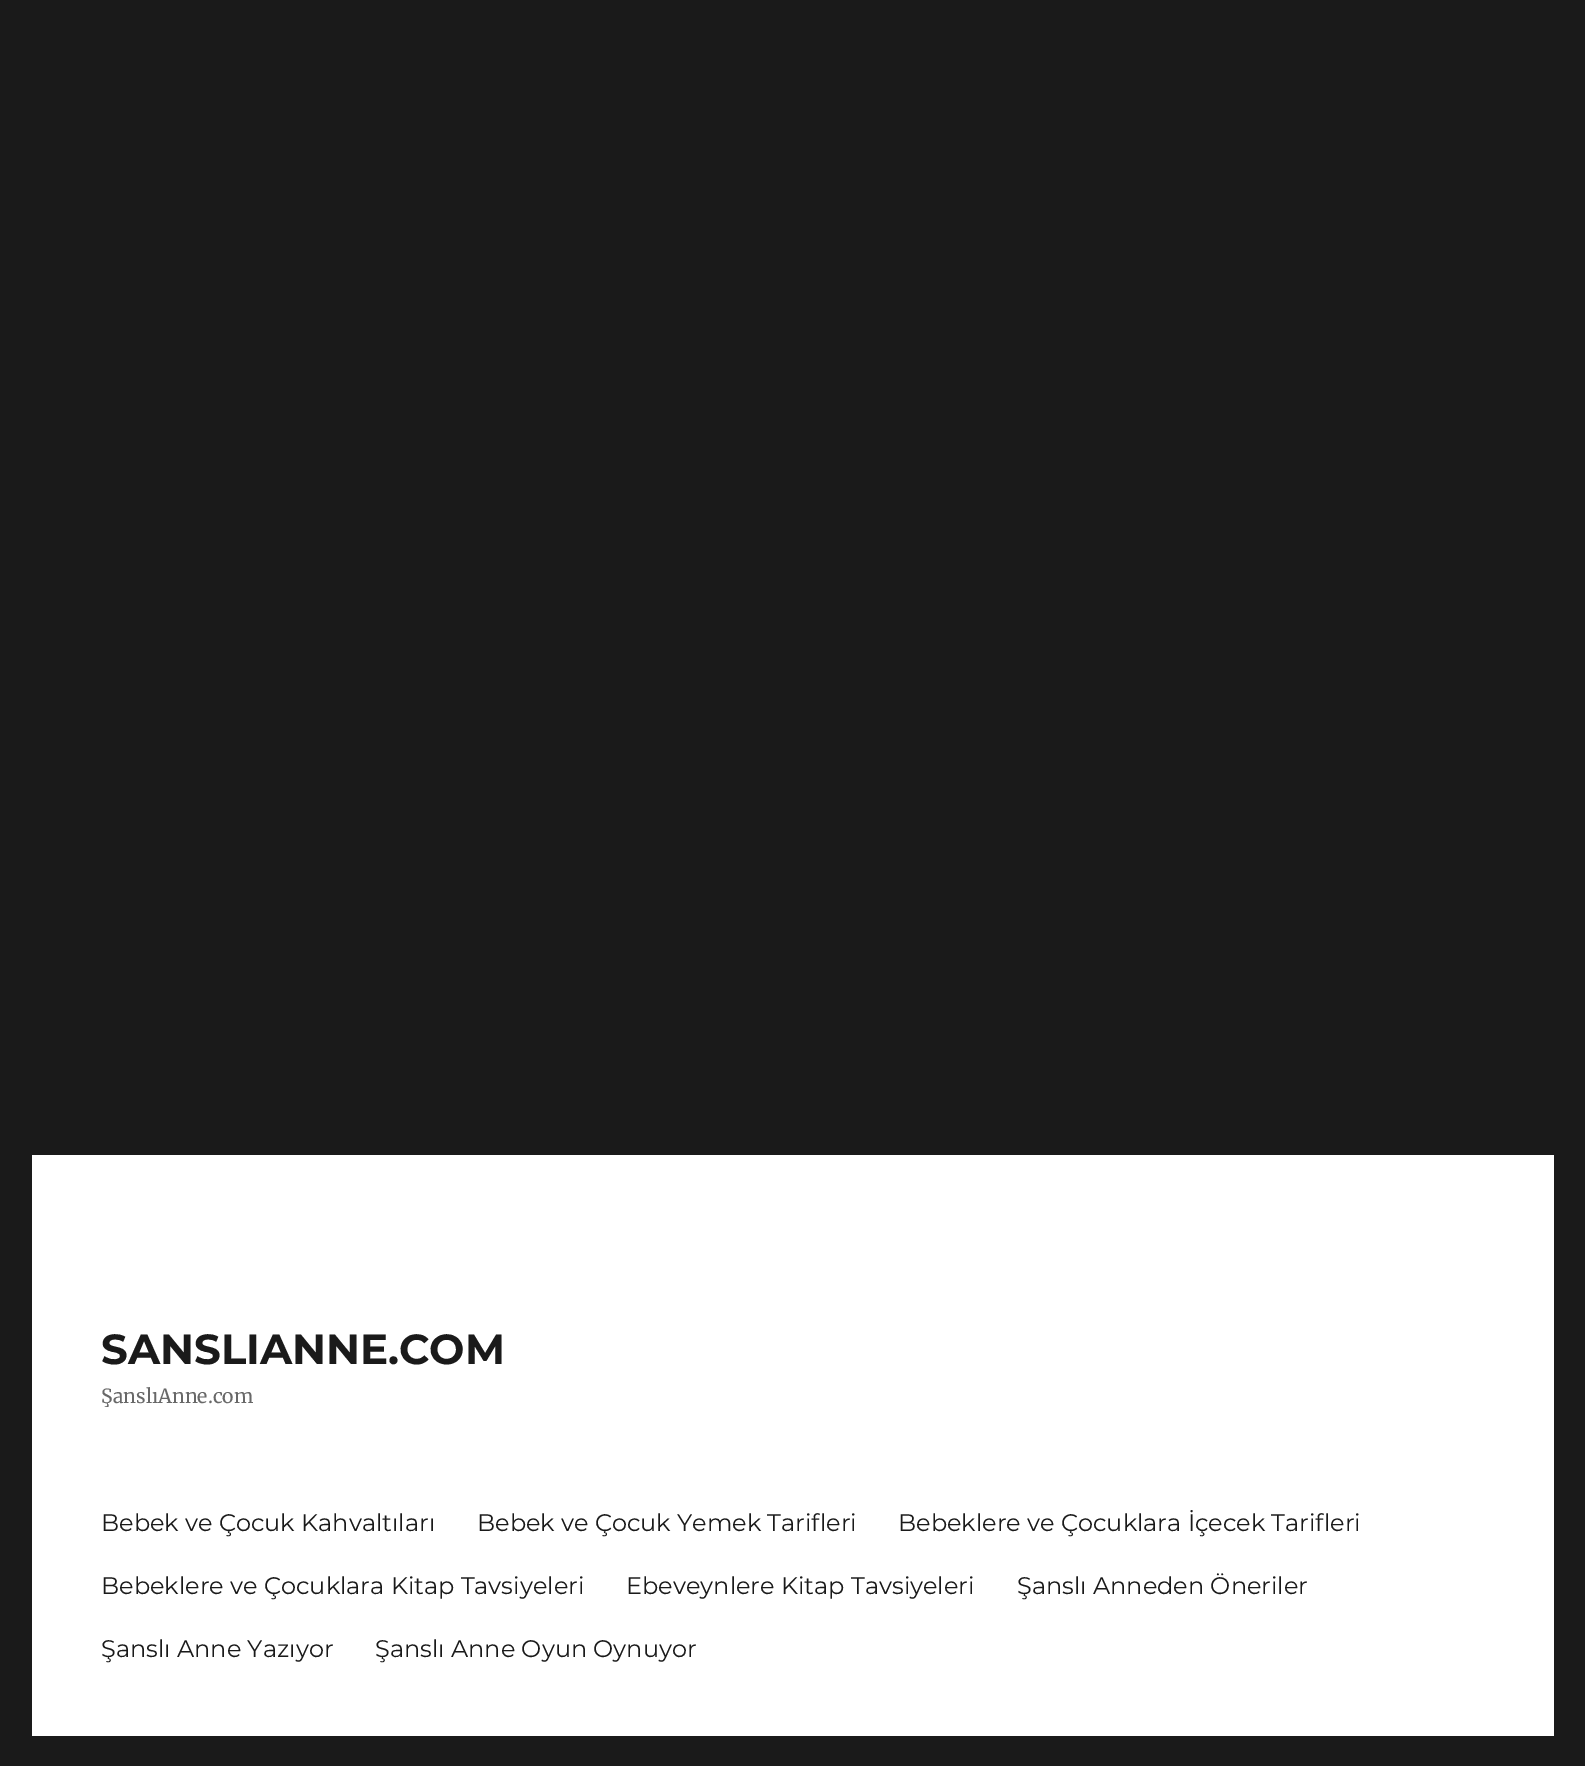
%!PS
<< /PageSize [1585 1766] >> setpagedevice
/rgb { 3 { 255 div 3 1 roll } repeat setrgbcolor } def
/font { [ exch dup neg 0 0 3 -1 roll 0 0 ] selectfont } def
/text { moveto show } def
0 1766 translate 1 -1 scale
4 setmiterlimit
26 26 26 rgb
0 0 1585 1766 rectfill
255 255 255 rgb
32 1155 1522 581 rectfill
/Montserrat-Bold 42 font
26 26 26 rgb
(SANSLIANNE.COM) 101 1364 text
gsave
101 1323 405 84 rectclip
/Merriweather-Regular 19.5 font
104 104 104 rgb
(ŞanslıAnne.com) 101 1403 text
grestore
/Montserrat-Regular 24 font
(Bebek ve Çocuk Kahvaltıları) 101 1531 text
(Bebek ve Çocuk Yemek Tarifleri) 477 1531 text
(Bebeklere ve Çocuklara İçecek Tarifleri) 898 1531 text
(Bebeklere ve Çocuklara Kitap Tavsiyeleri) 101 1594 text
(Ebeveynlere Kitap Tavsiyeleri) 626 1594 text
(Şanslı Anneden Öneriler) 1017 1594 text
(Şanslı Anne Yazıyor) 101 1657 text
(Şanslı Anne Oyun Oynuyor) 375 1657 text
showpage
